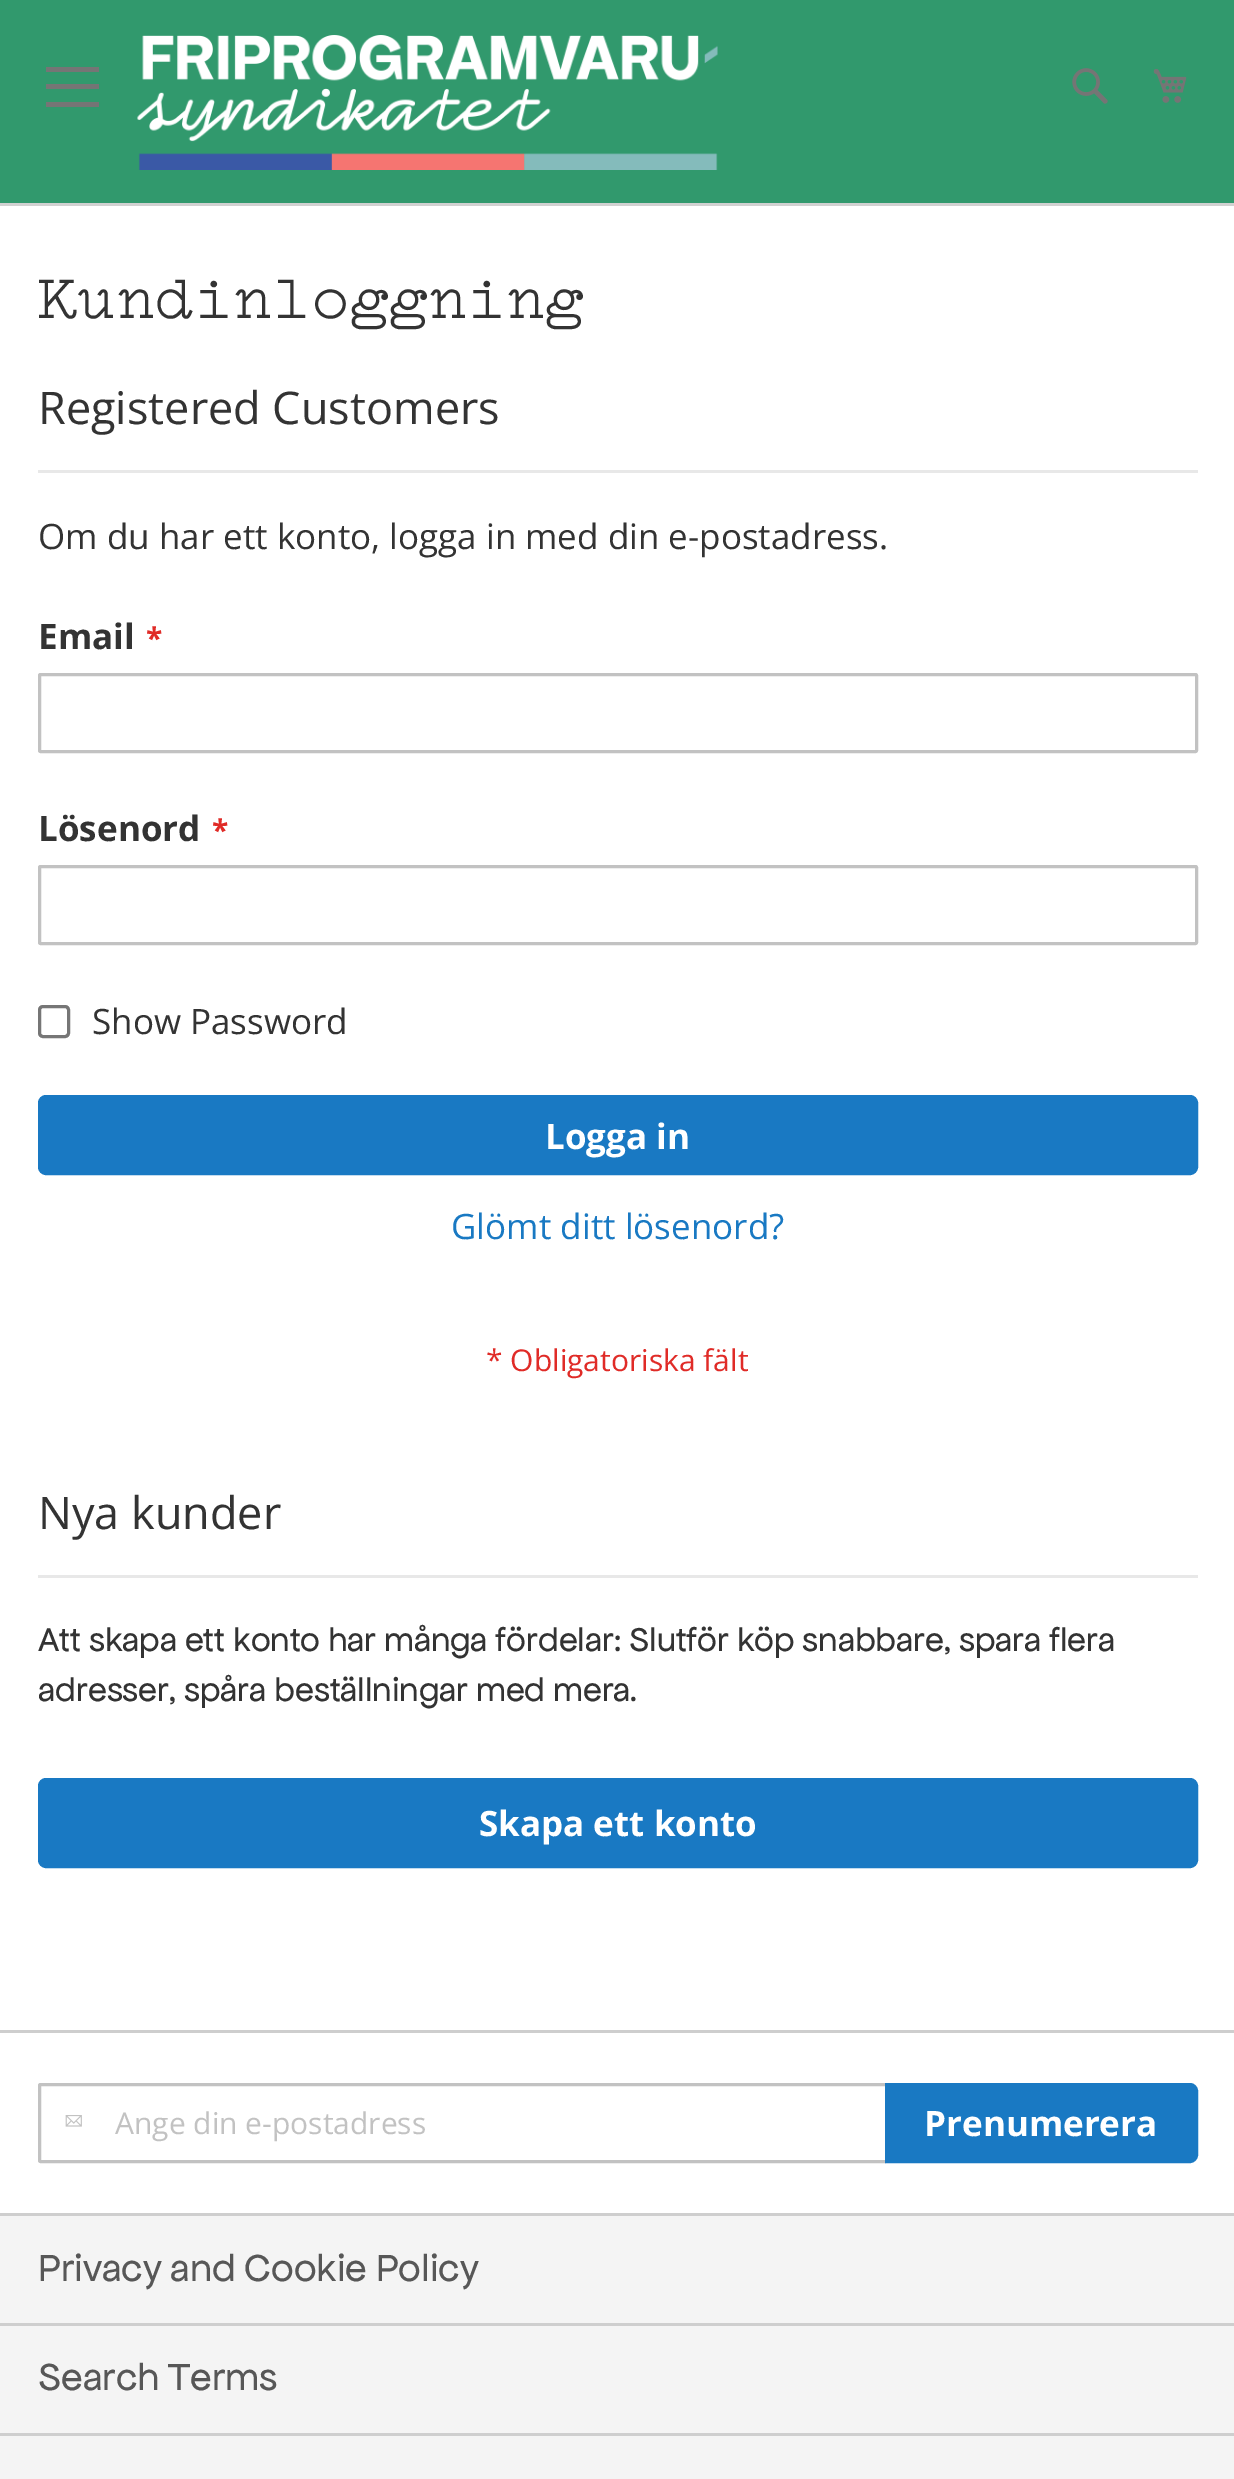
%!PS
<< /PageSize [1234 2479] >> setpagedevice
/rgb { 3 { 255 div 3 1 roll } repeat setrgbcolor } def
/font { [ exch dup neg 0 0 3 -1 roll 0 0 ] selectfont } def
/text { moveto show } def
/roundrect { 5 dict begin { /r /h /w /y /x } { exch def } forall
  x r add y moveto x w add y 2 copy h add r arct x w add y h add x 1 index r arct
  x y h add x y r arct x y 2 copy exch w add exch r arct closepath end } def
/picture { 5 dict begin { /h /w /y /x /name } { exch def } forall
  gsave x y translate w h scale
  w h 8 [w 0 0 h 0 0] name (r) file false 3 colorimage grestore end } def
0 2479 translate 1 -1 scale
4 setmiterlimit
255 255 255 rgb
0 0 1234 2479 rectfill
49 153 109 rgb
0 0 1234 203 rectfill
209 209 209 rgb
0 203 1234 3 rectfill
117 117 117 rgb
46 67 moveto 0 5 rlineto 53 0 rlineto 0 -5 rlineto closepath 46 89 moveto 53 0 rlineto 0 -5 rlineto -53 0 rlineto closepath 46 107 moveto 53 0 rlineto 0 -5 rlineto -53 0 rlineto closepath fill
(img_01.rgb) 137 35 581 135 picture
(img_02.rgb) 1072 68 36 36 picture
(img_03.rgb) 1153 69 34 34 picture
232 232 232 rgb
38 470 1160 3 rectfill
194 194 194 rgb
3 setlinewidth
39.5 674.5 1157 77 1 roundrect stroke
39.5 866.5 1157 77 1 roundrect stroke
118 118 118 rgb
39.5 1006.5 29 30 3.5 roundrect stroke
25 121 195 rgb
39.5 1096.5 1157 77 6.5 roundrect gsave fill grestore
stroke
232 232 232 rgb
38 1575 1160 3 rectfill
25 121 195 rgb
39.5 1779.5 1157 87 6.5 roundrect gsave fill grestore
stroke
206 206 206 rgb
0 2030 1234 3 rectfill
194 194 194 rgb
39.5 2084.5 847 77 1 roundrect stroke
(img_04.rgb) 65 2115 17 12 picture
25 121 195 rgb
886.5 2084.5 moveto 303.5 0 rlineto 3.5 0 6.5 3 6.5 6.5 rcurveto 0 64 rlineto 0 3.5 -3 6.5 -6.5 6.5 rcurveto -303.5 0 rlineto closepath gsave fill grestore
stroke
244 244 244 rgb
0 2216 1234 107 rectfill
206 206 206 rgb
0 2213 1234 3 rectfill
244 244 244 rgb
0 2326 1234 107 rectfill
206 206 206 rgb
0 2323 1234 3 rectfill
244 244 244 rgb
0 2436 1234 43 rectfill
206 206 206 rgb
0 2433 1234 3 rectfill
/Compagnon-Regular 65 font
51 51 51 rgb
(Kundinloggning) 38 318 text
/OpenSans-Regular 45 font
(Registered Customers) 38 424 text
/OpenSans-Regular 35 font
(Om du har ett konto, logga in med din e-postadress.) 38 549 text
/OpenSans-Bold 35 font
(Email) 38 649 text
/OpenSans-Bold 30 font
224 43 39 rgb
(*) 146 649 text
/OpenSans-Bold 35 font
51 51 51 rgb
(Lösenord) 38 841 text
/OpenSans-Bold 30 font
224 43 39 rgb
(*) 212 841 text
/OpenSans-Regular 35 font
51 51 51 rgb
(Show Password) 92 1034 text
/OpenSans-Bold 35 font
255 255 255 rgb
(Logga in) 545 1149 text
/OpenSans-Regular 35 font
25 121 195 rgb
(Glömt ditt lösenord?) 451 1239 text
/OpenSans-Regular 30 font
224 43 39 rgb
(* Obligatoriska fält) 486 1371 text
/OpenSans-Regular 45 font
51 51 51 rgb
(Nya kunder) 38 1529 text
/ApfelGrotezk-Regular 35 font
(Att skapa ett konto har många fördelar: Slutför köp snabbare, spara flera) 38 1651 text
(adresser, spåra beställningar med mera.) 38 1701 text
/OpenSans-Bold 35 font
255 255 255 rgb
(Skapa ett konto) 479 1836 text
/OpenSans-Regular 30 font
194 194 194 rgb
(Ange din e-postadress) 115 2134 text
/OpenSans-Bold 35 font
255 255 255 rgb
(Prenumerera) 924 2136 text
/ApfelGrotezk-Regular 40 font
87 87 87 rgb
(Privacy and Cookie Policy) 38 2281 text
(Search Terms) 38 2390 text
showpage
